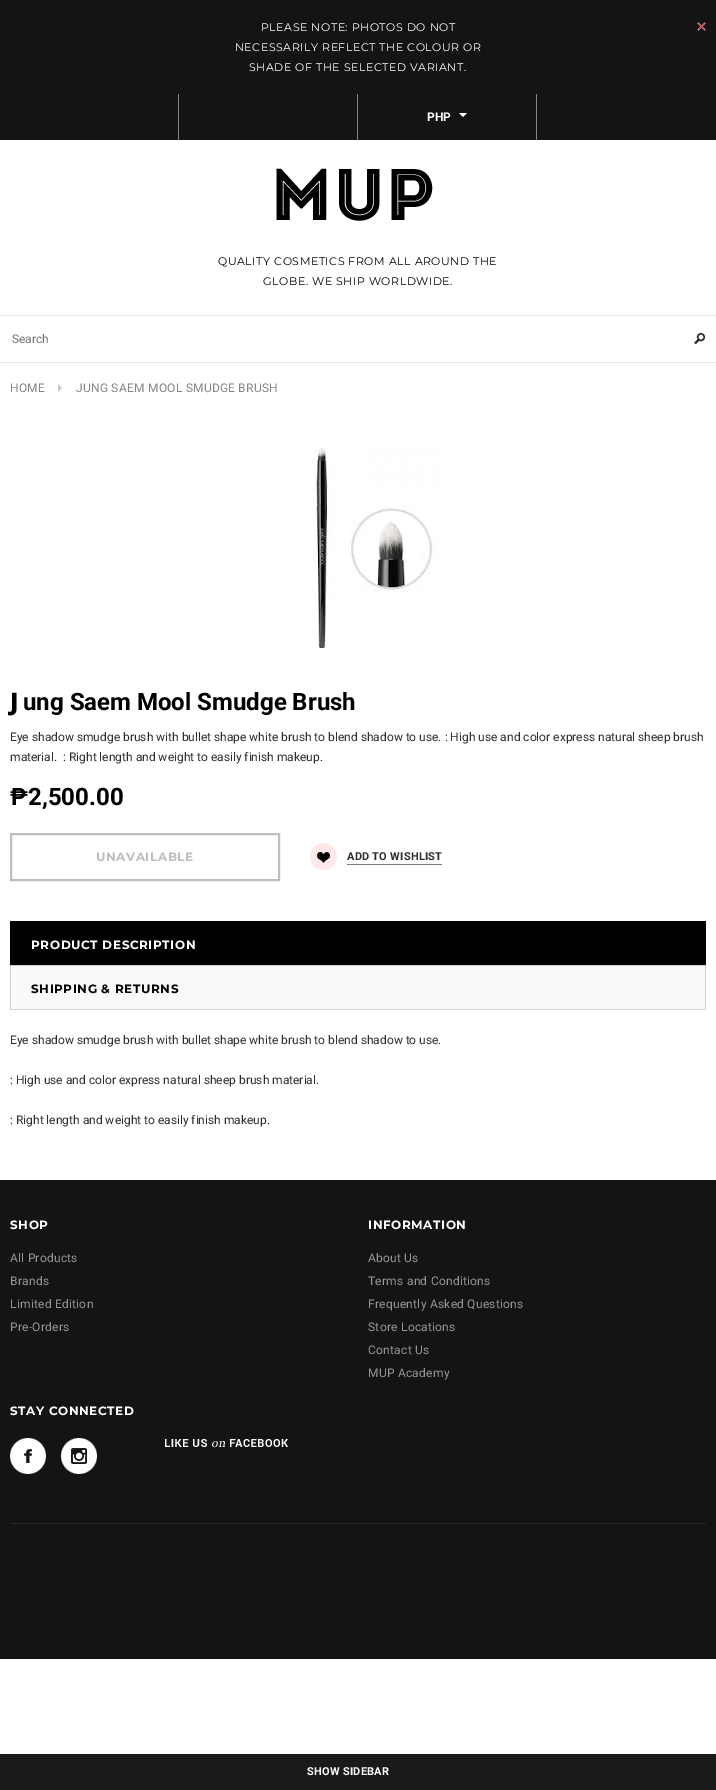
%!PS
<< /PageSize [716 1790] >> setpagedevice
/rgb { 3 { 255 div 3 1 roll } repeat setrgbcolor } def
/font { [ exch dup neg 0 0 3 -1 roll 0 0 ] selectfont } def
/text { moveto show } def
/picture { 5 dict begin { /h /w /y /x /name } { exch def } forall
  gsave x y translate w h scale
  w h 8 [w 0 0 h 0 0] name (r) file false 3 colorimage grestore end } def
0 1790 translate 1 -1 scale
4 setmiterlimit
255 255 255 rgb
0 0 716 1790 rectfill
20 20 20 rgb
0 0 716 94 rectfill
(img_01.rgb) 697 22 9 9 picture
0 94 357 46 rectfill
134 134 134 rgb
178 94 1 46 rectfill
357 94 1 46 rectfill
20 20 20 rgb
358 94 178 46 rectfill
134 134 134 rgb
536 94 1 46 rectfill
255 255 255 rgb
459 113 moveto 8 0 rlineto -4 4 rlineto closepath fill
(img_02.rgb) 276 168 157 53 picture
20 20 20 rgb
537 94 179 46 rectfill
231 231 231 rgb
0 315 716 1 rectfill
0 362 716 1 rectfill
(img_03.rgb) 694 333 11 12 picture
203 203 203 rgb
58 392 moveto 0 -8 rlineto 4 4 rlineto closepath fill
(img_04.rgb) 312 448 125 200 picture
190 190 190 rgb
2 setlinewidth
11 834 268 46 rectstroke
(img_05.rgb) 310 843 27 27 picture
123 123 123 rgb
347 864 95 1 rectfill
208 208 208 rgb
10 1009 696 1 rectfill
0 0 0 rgb
10 921 696 44 rectfill
250 250 250 rgb
11 966 694 43 rectfill
208 208 208 rgb
10 965 696 1 rectfill
705 965 1 44 rectfill
10 965 1 44 rectfill
20 20 20 rgb
0 1180 716 479 rectfill
(img_06.rgb) 10 1438 36 36 picture
(img_07.rgb) 61 1438 36 36 picture
(img_08.rgb) 165 1439 124 9 picture
40 40 40 rgb
10 1523 696 1 rectfill
26 26 26 rgb
0 1754 716 36 rectfill
/Montserrat-Regular 11 font
255 255 255 rgb
261 31 moveto 0.55 0 (PLEASE NOTE: PHOTOS DO NOT) ashow
235 51 moveto 0.55 0 (NECESSARILY REFLECT THE COLOUR OR) ashow
249 71 moveto 0.55 0 (SHADE OF THE SELECTED VARIANT.) ashow
/Roboto-Bold 12 font
(PHP) 427 121 text
/Montserrat-Regular 11 font
0 0 0 rgb
218 265 moveto 0.55 0 (QUALITY COSMETICS FROM ALL AROUND THE) ashow
263 285 moveto 0.55 0 (GLOBE. WE SHIP WORLDWIDE.) ashow
/Roboto-Regular 12 font
117 117 117 rgb
(Search) 12 343 text
132 132 132 rgb
10 392 moveto 0.25 0 (HOME) ashow
76 392 moveto 0.25 0 (JUNG SAEM MOOL SMUDGE BRUSH) ashow
/NotoSans-Black 24 font
0 0 0 rgb
(J) 10 710 text
/Roboto-Bold 24 font
(ung Saem Mool Smudge Brush) 23 710 text
/Roboto-Regular 12 font
45 45 45 rgb
(Eye shadow smudge brush with bullet shape white brush to blend shadow to use. : High use and color express natural sheep brush) 10 741 text
(material.) 10 761 text
(: Right length and weight to easily finish makeup.) 63 761 text
/Roboto-Bold 24 font
0 0 0 rgb
(₱2,500.00) 10 805 text
/Montserrat-Bold 12 font
190 190 190 rgb
96 861 moveto 0.6 0 (UNAVAILABLE) ashow
/Roboto-Bold 11 font
45 45 45 rgb
347 860 moveto 0.25 0 (ADD TO WISHLIST) ashow
/Montserrat-Bold 12 font
255 255 255 rgb
31 949 moveto 0.6 0 (PRODUCT DESCRIPTION) ashow
0 0 0 rgb
31 993 moveto 0.6 0 (SHIPPING & RETURNS) ashow
/Roboto-Regular 12 font
45 45 45 rgb
(Eye shadow smudge brush with bullet shape white brush to blend shadow to use.) 10 1044 text
(: High use and color express natural sheep brush material.) 10 1084 text
(: Right length and weight to easily finish makeup.) 10 1124 text
/Montserrat-Bold 12 font
255 255 255 rgb
10 1229 moveto 0.6 0 (SHOP) ashow
/Roboto-Regular 12 font
150 150 150 rgb
10 1262 moveto 0.25 0 (All Products) ashow
10 1285 moveto 0.25 0 (Brands) ashow
10 1308 moveto 0.25 0 (Limited Edition) ashow
10 1331 moveto 0.25 0 (Pre-Orders) ashow
/Montserrat-Bold 12 font
255 255 255 rgb
368 1229 moveto 0.6 0 (INFORMATION) ashow
/Roboto-Regular 12 font
150 150 150 rgb
368 1262 moveto 0.25 0 (About Us) ashow
368 1285 moveto 0.25 0 (Terms and Conditions) ashow
368 1308 moveto 0.25 0 (Frequently Asked Questions) ashow
368 1331 moveto 0.25 0 (Store Locations) ashow
368 1354 moveto 0.25 0 (Contact Us) ashow
368 1377 moveto 0.25 0 (MUP Academy) ashow
/Montserrat-Bold 12 font
255 255 255 rgb
10 1415 moveto 0.6 0 (STAY CONNECTED) ashow
/Roboto-Bold 11 font
307 1775 moveto 0.25 0 (SHOW SIDEBAR) ashow
showpage
